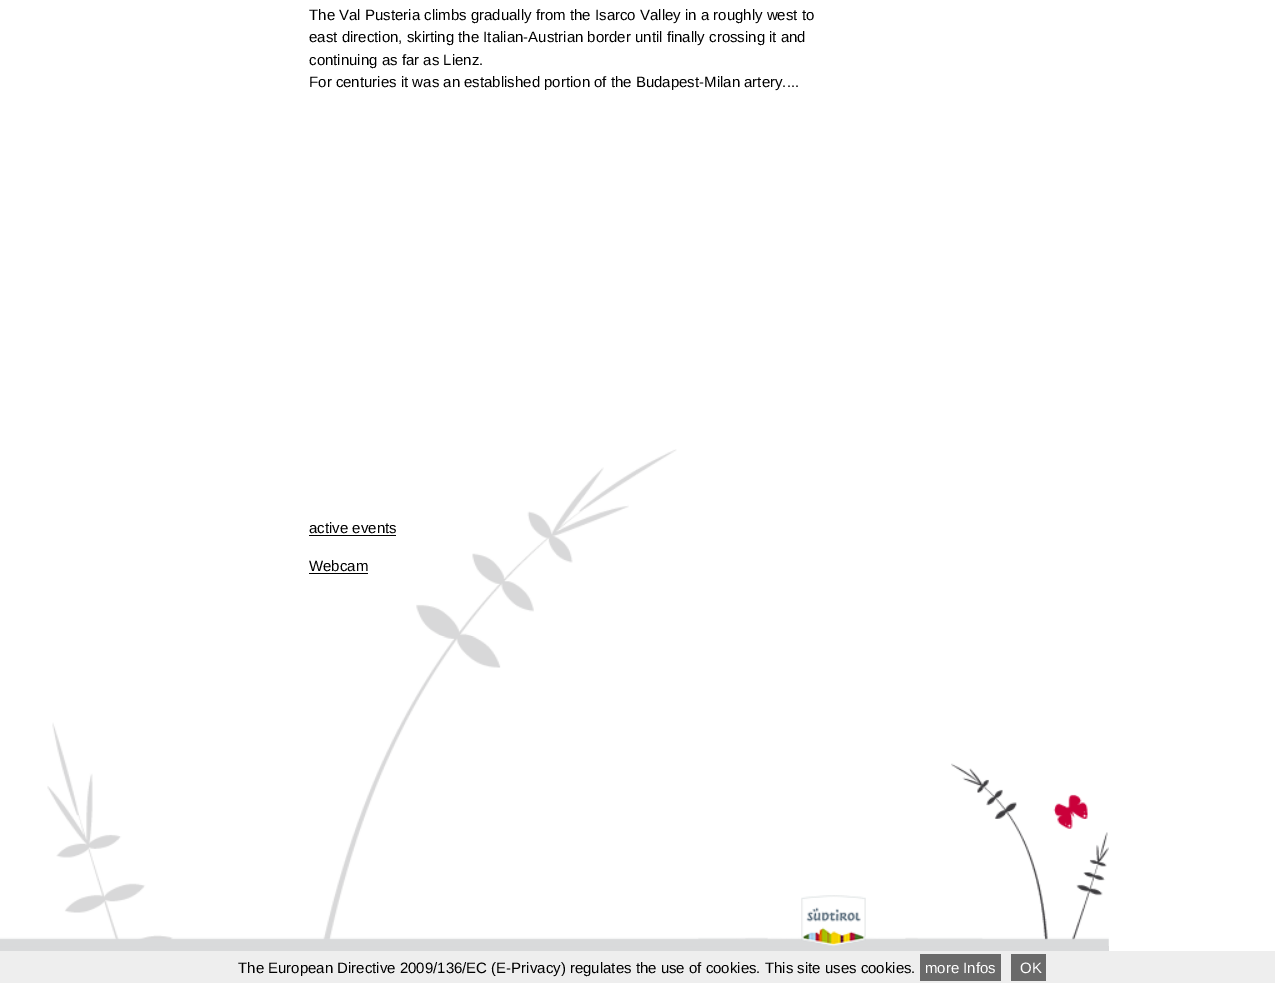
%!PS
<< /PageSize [1275 983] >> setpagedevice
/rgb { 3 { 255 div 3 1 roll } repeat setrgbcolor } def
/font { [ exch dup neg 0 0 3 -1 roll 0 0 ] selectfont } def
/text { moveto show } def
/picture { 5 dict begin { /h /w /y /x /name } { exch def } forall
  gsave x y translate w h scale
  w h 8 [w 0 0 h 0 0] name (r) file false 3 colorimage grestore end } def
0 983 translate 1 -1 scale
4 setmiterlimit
255 255 255 rgb
0 0 1275 983 rectfill
(img_01.rgb) 47 449 1062 497 picture
0 0 0 rgb
309 535 87 1 rectfill
309 573 59 1 rectfill
217 218 219 rgb
0 946 1109 5 rectfill
(img_02.rgb) 0 895 1109 52 picture
238 238 238 rgb
0 951 1275 32 rectfill
106 106 106 rgb
920 954 81 27 rectfill
1011 954 35 27 rectfill
/LiberationSans-Regular 15 font
0 0 0 rgb
(The Val Pusteria climbs gradually from the Isarco Valley in a roughly west to) 309 20 text
(east direction, skirting the Italian-Austrian border until finally crossing it and) 309 42 text
(continuing as far as Lienz.) 309 65 text
(For centuries it was an established portion of the Budapest-Milan artery....) 309 87 text
(active events) 309 533 text
(Webcam) 309 571 text
(The European Directive 2009/136/EC \(E-Privacy\) regulates the use of cookies. This site uses cookies.) 238 973 text
255 255 255 rgb
(more Infos) 925 973 text
(OK) 1020 973 text
showpage
